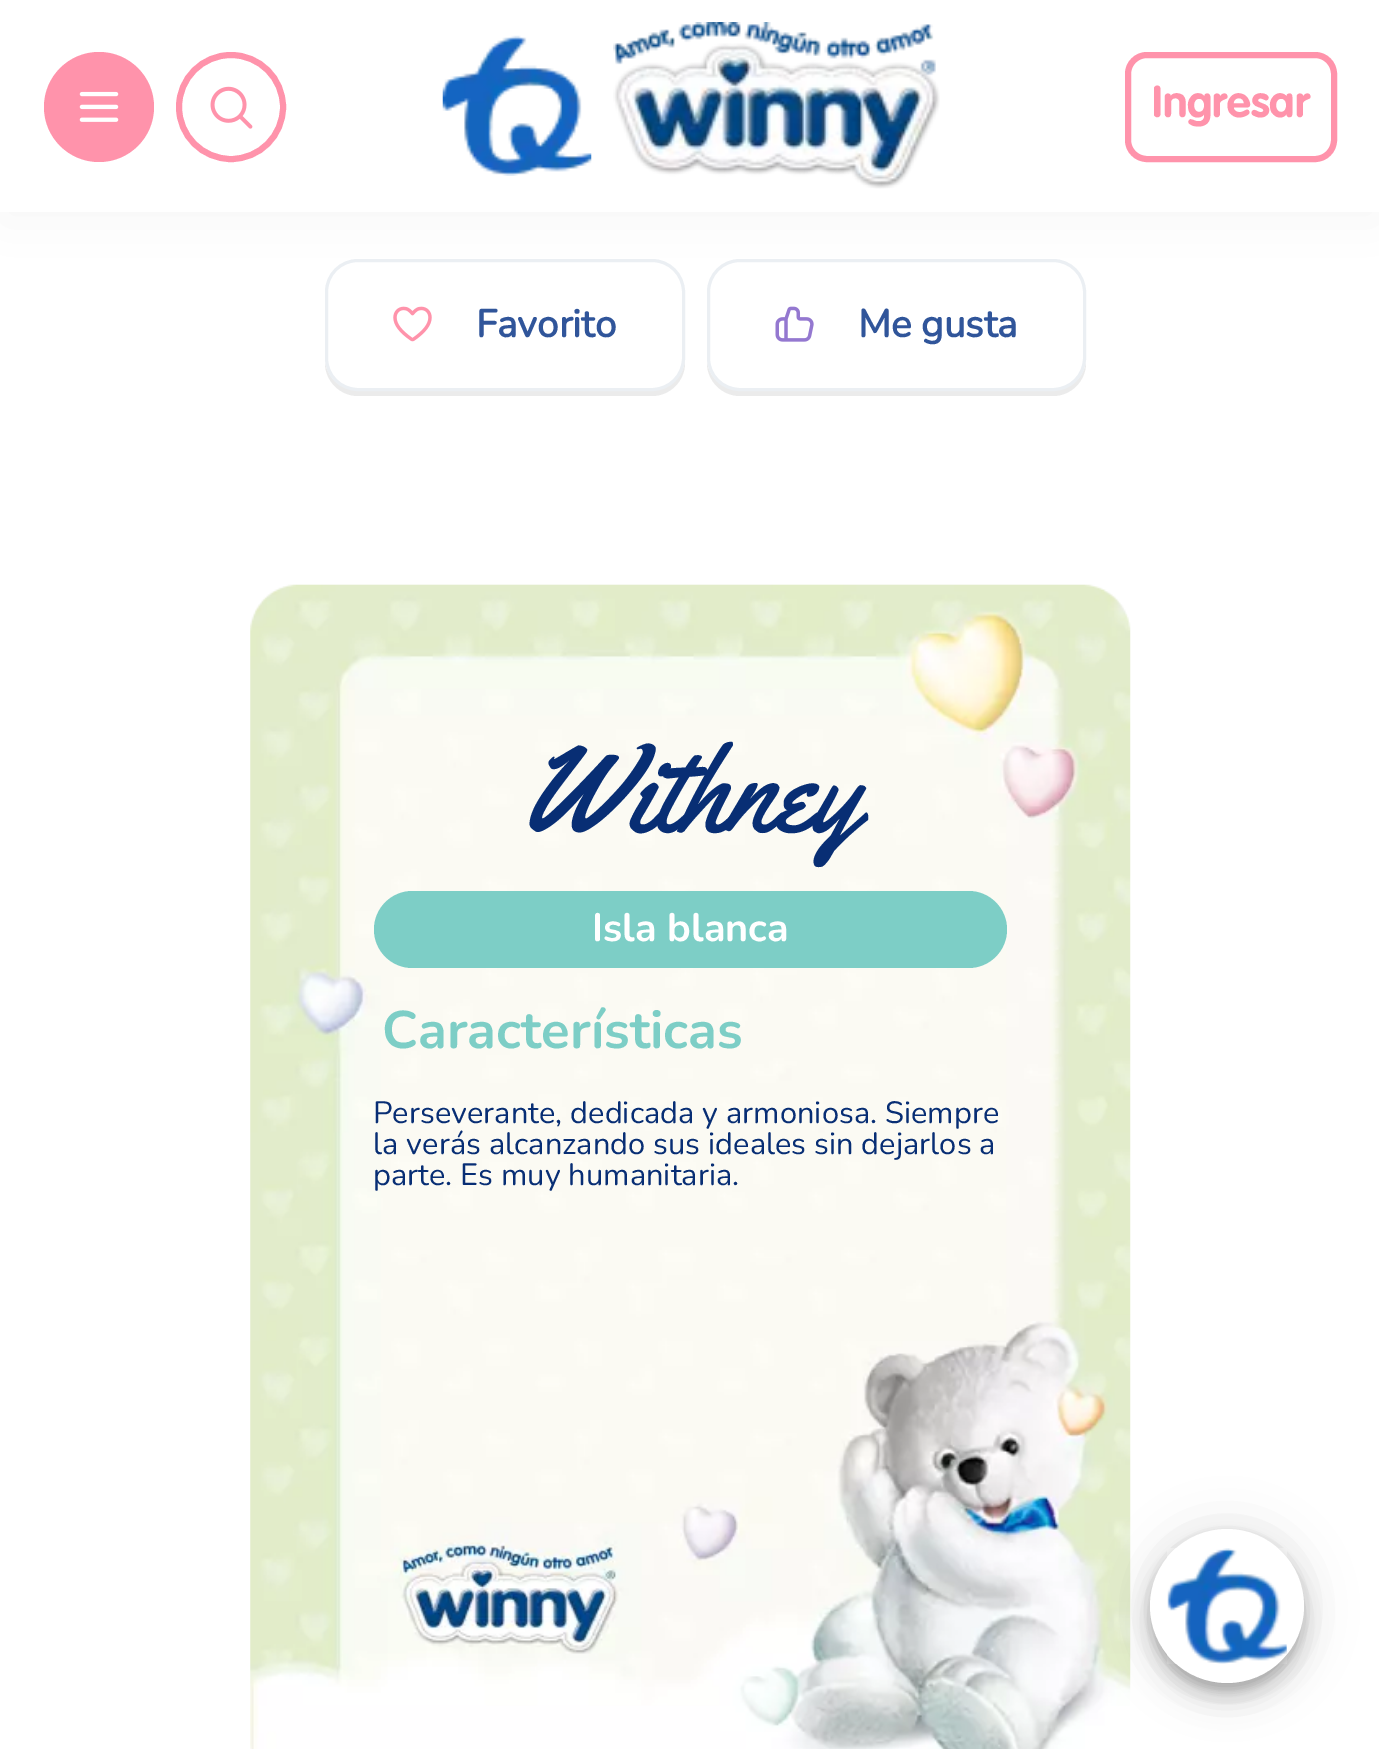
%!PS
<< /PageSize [1379 1749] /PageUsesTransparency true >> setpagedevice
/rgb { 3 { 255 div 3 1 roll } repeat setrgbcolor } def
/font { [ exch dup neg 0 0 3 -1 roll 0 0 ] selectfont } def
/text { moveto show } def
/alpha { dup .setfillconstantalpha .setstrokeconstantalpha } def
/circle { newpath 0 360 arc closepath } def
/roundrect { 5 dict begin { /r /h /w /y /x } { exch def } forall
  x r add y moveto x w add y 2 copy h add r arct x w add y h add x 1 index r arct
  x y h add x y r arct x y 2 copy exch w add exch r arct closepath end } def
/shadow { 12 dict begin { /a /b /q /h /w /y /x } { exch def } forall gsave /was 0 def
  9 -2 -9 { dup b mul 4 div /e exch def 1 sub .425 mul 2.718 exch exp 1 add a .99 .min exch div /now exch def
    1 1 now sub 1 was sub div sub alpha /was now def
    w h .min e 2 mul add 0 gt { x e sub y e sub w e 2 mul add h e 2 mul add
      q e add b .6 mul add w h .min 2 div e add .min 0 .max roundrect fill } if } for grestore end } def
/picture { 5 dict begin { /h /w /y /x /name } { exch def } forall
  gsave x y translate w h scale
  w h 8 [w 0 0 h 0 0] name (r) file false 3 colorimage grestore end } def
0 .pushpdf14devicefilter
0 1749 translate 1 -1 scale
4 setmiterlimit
255 255 255 rgb
0 0 1379 1749 rectfill
235 235 235 rgb
325 363 moveto 0 18 15 33 33 33 rcurveto 294 0 rlineto 18 0 33 -15 33 -33 rcurveto 0 -70 rlineto 0 65 rlineto 0 18 -15 32 -33 32 rcurveto -294 0 rlineto -17 0 -30 -11 -33 -27 rcurveto closepath fill
255 255 255 rgb
326.5 260.5 357 129 31.5 roundrect gsave fill grestore
235 239 243 rgb
3 setlinewidth
stroke
(img_05.rgb) 393 306 39 36 picture
235 235 235 rgb
707 362 moveto 0 1 rlineto 0 18 15 33 33 33 rcurveto 313 0 rlineto 18 0 33 -15 33 -33 rcurveto 0 -1 rlineto -2 16 -16 28 -33 28 rcurveto -313 0 rlineto -17 0 -31 -12 -33 -28 rcurveto closepath fill
255 255 255 rgb
708.5 260.5 376 129 31.5 roundrect gsave fill grestore
235 239 243 rgb
stroke
(img_06.rgb) 775 306 39 36 picture
32 0 32 rgb
0 11 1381 212 0 27.5 0.04 shadow
255 255 255 rgb
0 0 1379 212 rectfill
255 147 171 rgb
99 107 55 circle fill
(img_01.rgb) 79 91 40 31 picture
6 setlinewidth
231 107 52 circle stroke
(img_02.rgb) 210 86 43 43 picture
(img_03.rgb) 442 35 150 141 picture
(img_04.rgb) 613 22 327 167 picture
1128 55 206 104 19 roundrect stroke
(img_07.rgb) 250 584 881 1165 picture
125 206 198 rgb
374 891 633 77 38.5 roundrect fill
0 0 0 rgb
1150 1532 154 154 77 25 0.12 shadow
1150 1546 154 154 77 14 0.14 shadow
1152 1540 149 149 74.5 7 0.2 shadow
255 255 255 rgb
1227 1606 77 circle fill
(img_08.rgb) 1167 1548 120 116 picture
/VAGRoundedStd-Bold 44 font
255 147 171 rgb
(Ingresar) 1152 117 text
/Nunito-Bold 38.5 font
48 85 154 rgb
(Favorito) 476 337 text
(Me gusta) 858 337 text
/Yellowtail-Regular 121 font
8 46 116 rgb
(Withney) 521 831 text
/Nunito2-Bold 39.5 font
255 255 255 rgb
(Isla blanca) 592 941 text
/Nunito2-Bold 52.75 font
125 206 198 rgb
(Características) 382 1048 text
/Nunito-Regular 30.8 font
8 46 116 rgb
(Perseverante, dedicada y armoniosa. Siempre) 373 1123 text
(la verás alcanzando sus ideales sin dejarlos a) 373 1154 text
(parte. Es muy humanitaria.) 373 1185 text
.poppdf14devicefilter showpage
